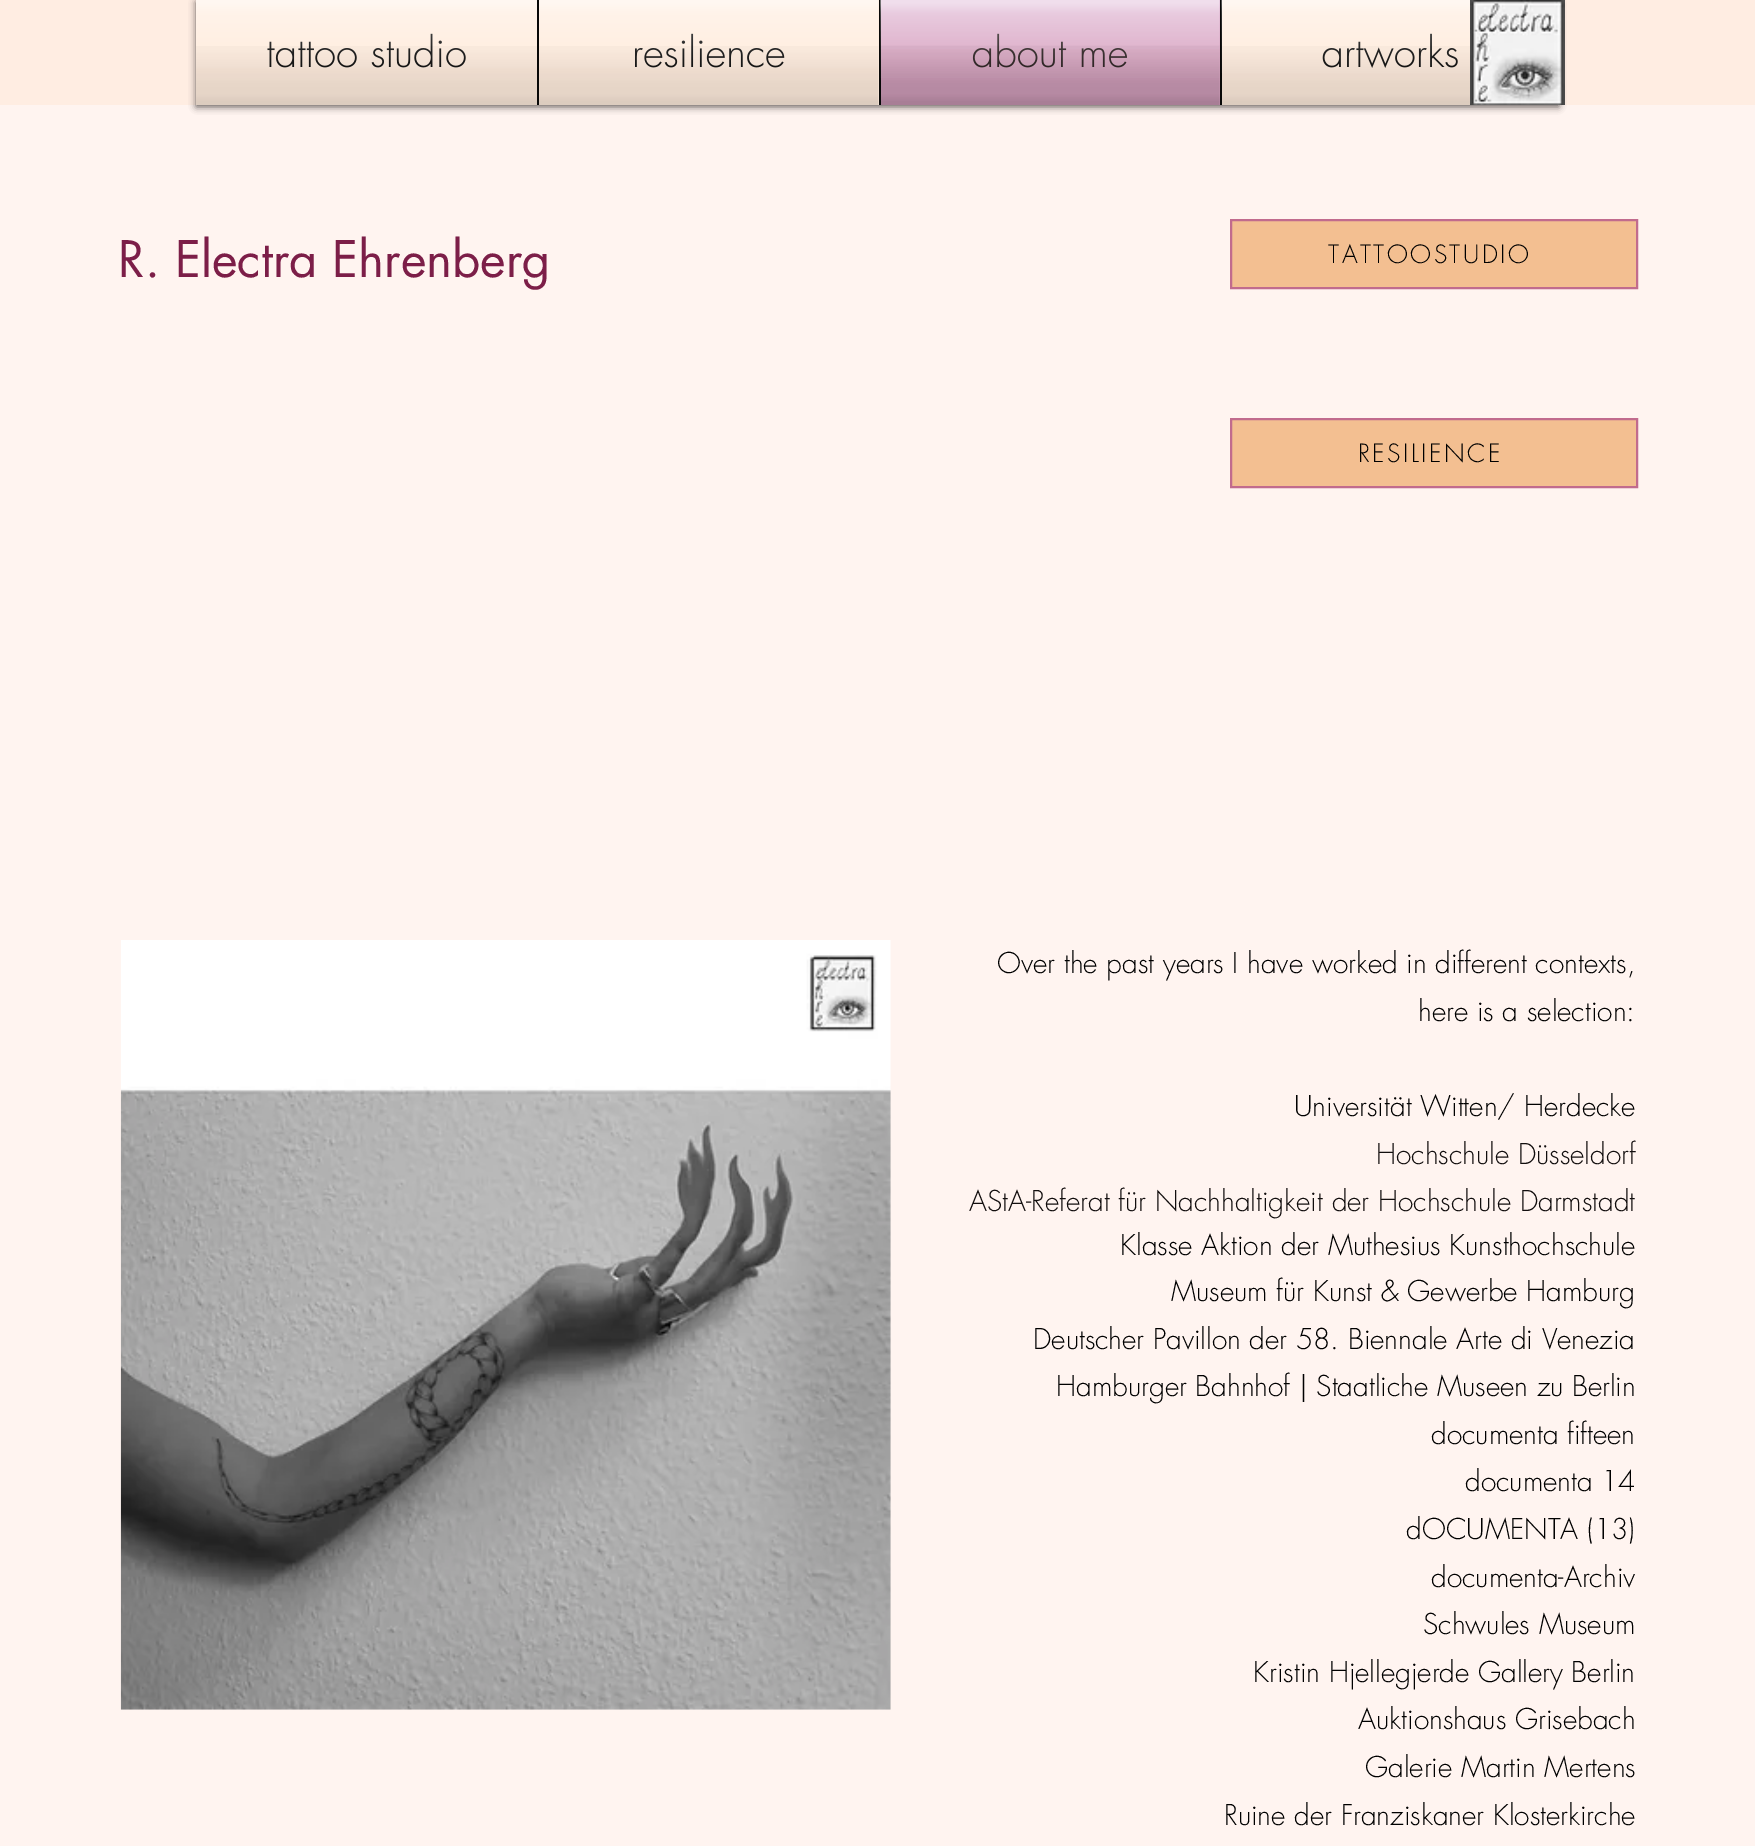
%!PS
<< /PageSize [1755 1846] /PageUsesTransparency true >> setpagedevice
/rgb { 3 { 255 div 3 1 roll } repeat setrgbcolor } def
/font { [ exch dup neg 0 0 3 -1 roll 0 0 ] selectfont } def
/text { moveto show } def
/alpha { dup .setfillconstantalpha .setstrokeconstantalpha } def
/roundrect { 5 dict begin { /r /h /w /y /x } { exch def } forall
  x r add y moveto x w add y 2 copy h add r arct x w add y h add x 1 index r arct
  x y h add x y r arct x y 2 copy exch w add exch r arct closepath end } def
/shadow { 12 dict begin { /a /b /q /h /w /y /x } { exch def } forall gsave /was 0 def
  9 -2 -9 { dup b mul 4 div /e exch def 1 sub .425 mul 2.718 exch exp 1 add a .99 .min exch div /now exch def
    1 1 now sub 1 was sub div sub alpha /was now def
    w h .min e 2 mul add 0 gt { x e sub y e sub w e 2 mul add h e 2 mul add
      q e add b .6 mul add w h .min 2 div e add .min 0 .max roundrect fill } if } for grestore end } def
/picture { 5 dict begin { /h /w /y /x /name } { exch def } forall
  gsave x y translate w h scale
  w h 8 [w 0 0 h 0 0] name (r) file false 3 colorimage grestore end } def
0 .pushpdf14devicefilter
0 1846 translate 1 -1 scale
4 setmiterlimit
255 244 240 rgb
0 0 1755 1846 rectfill
255 237 226 rgb
0 0 1755 105 rectfill
0 0 0 rgb
196 2 1363 105 0 3.5 0.6 shadow
255 236 221 rgb
881 0 339 105 rectfill
(img_01.rgb) 881 0 339 49 picture
(img_02.rgb) 881 46 339 59 picture
196 0 341 105 rectfill
539 0 340 105 rectfill
8 8 8 rgb
537 0 2 105 rectfill
0.3 alpha
136 12 136 rgb
881 0 339 105 rectfill
1 alpha
8 8 8 rgb
879 0 2 105 rectfill
255 236 221 rgb
1222 0 248 105 rectfill
8 8 8 rgb
1220 0 2 105 rectfill
(img_11.rgb) 1470 0 95 105 picture
243 191 145 rgb
1231 220 moveto 406 0 rlineto 0 68 rlineto -406 0 rlineto closepath gsave fill grestore
193 107 141 rgb
2 setlinewidth
stroke
243 191 145 rgb
1231 419 moveto 406 0 rlineto 0 68 rlineto -406 0 rlineto closepath gsave fill grestore
193 107 141 rgb
stroke
(img_12.rgb) 120 940 771 770 picture
/futura-Light 40.25 font
8 8 8 rgb
(tattoo studio) 266 67 text
(img_03.rgb) 196 0 341 68 picture
(img_04.rgb) 196 46 341 59 picture
(resilience) 632 67 text
(img_05.rgb) 539 0 340 68 picture
(img_06.rgb) 539 46 340 59 picture
38 28 28 rgb
(about me) 972 67 text
(img_07.rgb) 880 0 340 78 picture
(img_08.rgb) 881 46 339 59 picture
8 8 8 rgb
(artworks) 1321 67 text
(img_09.rgb) 1221 0 249 73 picture
(img_10.rgb) 1222 46 248 59 picture
/futura-Regular 49 font
124 30 72 rgb
(R. Electra Ehrenberg) 118 277 text
/futura-Light 24.5 font
0 0 0 rgb
1328 263 moveto 2.5 0 (TATTOOSTUDIO) ashow
1358 462 moveto 2.5 0 (RESILIENCE) ashow
/futura-Light 28 font
(Over the past years I have worked in different contexts,) 997 973 text
(here is a selection:) 1418 1021 text
(Universität Witten/ Herdecke) 1294 1116 text
18 14 14 rgb
(Hochschule Düsseldorf) 1376 1164 text
(AStA-Referat für Nachhaltigkeit der Hochschule Darmstadt) 969 1211 text
0 0 0 rgb
(Klasse Aktion der Muthesius Kunsthochschule) 1120 1255 text
(Museum für Kunst & Gewerbe Hamburg) 1171 1301 text
(Deutscher Pavillon der 58. Biennale Arte di Venezia) 1033 1349 text
(Hamburger Bahnhof | Staatliche Museen zu Berlin) 1056 1396 text
(documenta fifteen) 1431 1444 text
(documenta 14) 1465 1491 text
(dOCUMENTA \(13\)) 1406 1539 text
(documenta-Archiv) 1431 1587 text
(Schwules Museum) 1423 1634 text
(Kristin Hjellegjerde Gallery Berlin) 1253 1682 text
(Auktionshaus Grisebach) 1358 1729 text
(Galerie Martin Mertens) 1365 1777 text
(Ruine der Franziskaner Klosterkirche) 1224 1825 text
.poppdf14devicefilter showpage
